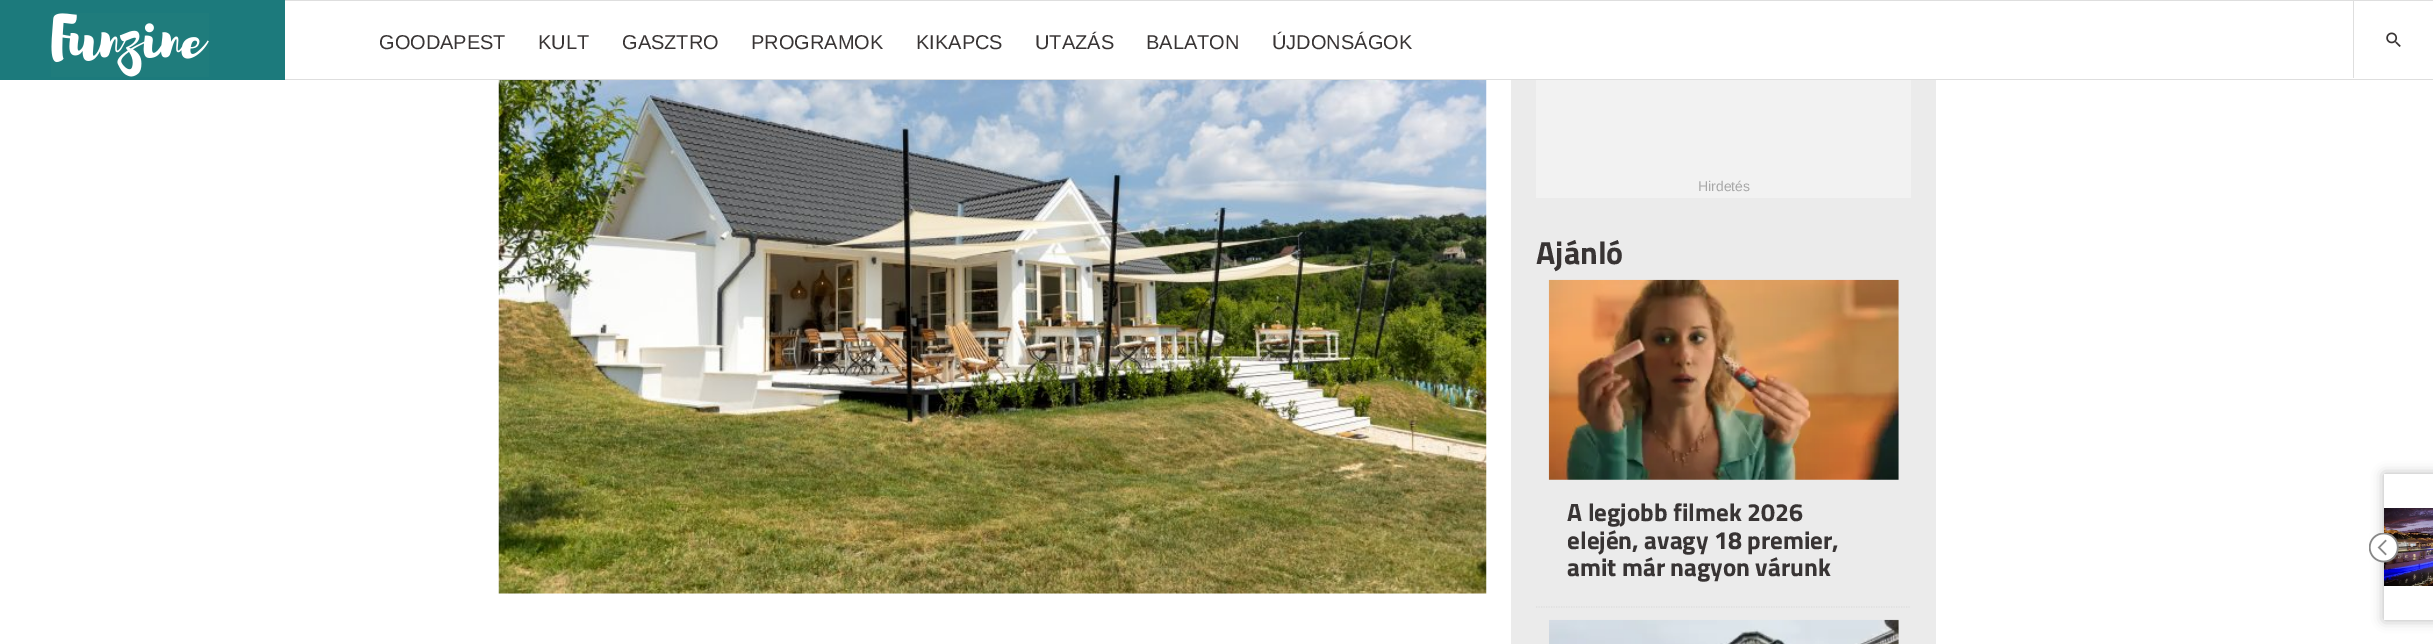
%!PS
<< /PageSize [2433 644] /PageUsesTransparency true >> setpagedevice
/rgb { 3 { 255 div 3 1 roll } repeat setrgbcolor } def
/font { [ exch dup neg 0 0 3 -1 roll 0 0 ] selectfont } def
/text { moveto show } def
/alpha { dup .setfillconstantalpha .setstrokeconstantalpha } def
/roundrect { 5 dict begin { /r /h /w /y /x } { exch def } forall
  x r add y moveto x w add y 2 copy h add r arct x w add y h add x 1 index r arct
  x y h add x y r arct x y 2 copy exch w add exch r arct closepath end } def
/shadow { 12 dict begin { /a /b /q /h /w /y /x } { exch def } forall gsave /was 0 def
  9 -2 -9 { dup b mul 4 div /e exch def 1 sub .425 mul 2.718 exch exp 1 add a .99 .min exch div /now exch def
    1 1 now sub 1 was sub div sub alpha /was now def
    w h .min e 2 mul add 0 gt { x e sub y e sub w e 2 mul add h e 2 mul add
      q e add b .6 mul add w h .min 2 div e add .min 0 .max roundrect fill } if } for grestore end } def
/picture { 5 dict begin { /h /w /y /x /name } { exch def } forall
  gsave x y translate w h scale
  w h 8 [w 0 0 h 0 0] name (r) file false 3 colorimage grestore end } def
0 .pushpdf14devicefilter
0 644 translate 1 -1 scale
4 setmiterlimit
255 255 255 rgb
0 0 2433 644 rectfill
222 222 222 rgb
285 0 2148 1 rectfill
285 79 2148 1 rectfill
28 122 124 rgb
0 0 285 80 rectfill
(img_01.rgb) 51 13 158 64 picture
222 222 222 rgb
2353 0 1 78 rectfill
(img_02.rgb) 2386 32 15 15 picture
(img_03.rgb) 498 80 989 514 picture
gsave
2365 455 moveto 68 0 rlineto 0 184 rlineto -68 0 rlineto closepath 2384 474 moveto 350 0 rlineto 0 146 rlineto -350 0 rlineto closepath eoclip newpath
0 0 0 rgb
2384 474 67 146 0 6 0.28 shadow
grestore
(img_04.rgb) 2384 508 49 78 picture
(img_05.rgb) 2369 533 30 30 picture
235 235 235 rgb
1511 80 425 564 rectfill
242 242 242 rgb
1536 80 375 118 rectfill
222 222 222 rgb
1.2 setlinewidth
[1.25 1.25] 0 setdash
1536 607 moveto 375 0 rlineto stroke
(img_06.rgb) 1548 279 351 201 picture
(img_07.rgb) 1549 619 350 25 picture
/LiberationSans-Regular 20 font
56 52 52 rgb
(GOODAPEST) 379 49 text
(KULT) 538 49 text
(GASZTRO) 622 49 text
(PROGRAMOK) 751 49 text
(KIKAPCS) 916 49 text
(UTAZÁS) 1035 49 text
(BALATON) 1146 49 text
(ÚJDONSÁGOK) 1272 49 text
/LiberationSans-Regular 14 font
167 167 167 rgb
(Hirdetés) 1698 191 text
/TitilliumWeb-Bold 32 font
56 52 52 rgb
(Ajánló) 1536 264 text
/TitilliumWeb-Bold 25 font
(A legjobb filmek 2026) 1567 521 text
(elején, avagy 18 premier,) 1567 549 text
(amit már nagyon várunk) 1567 576 text
.poppdf14devicefilter showpage
